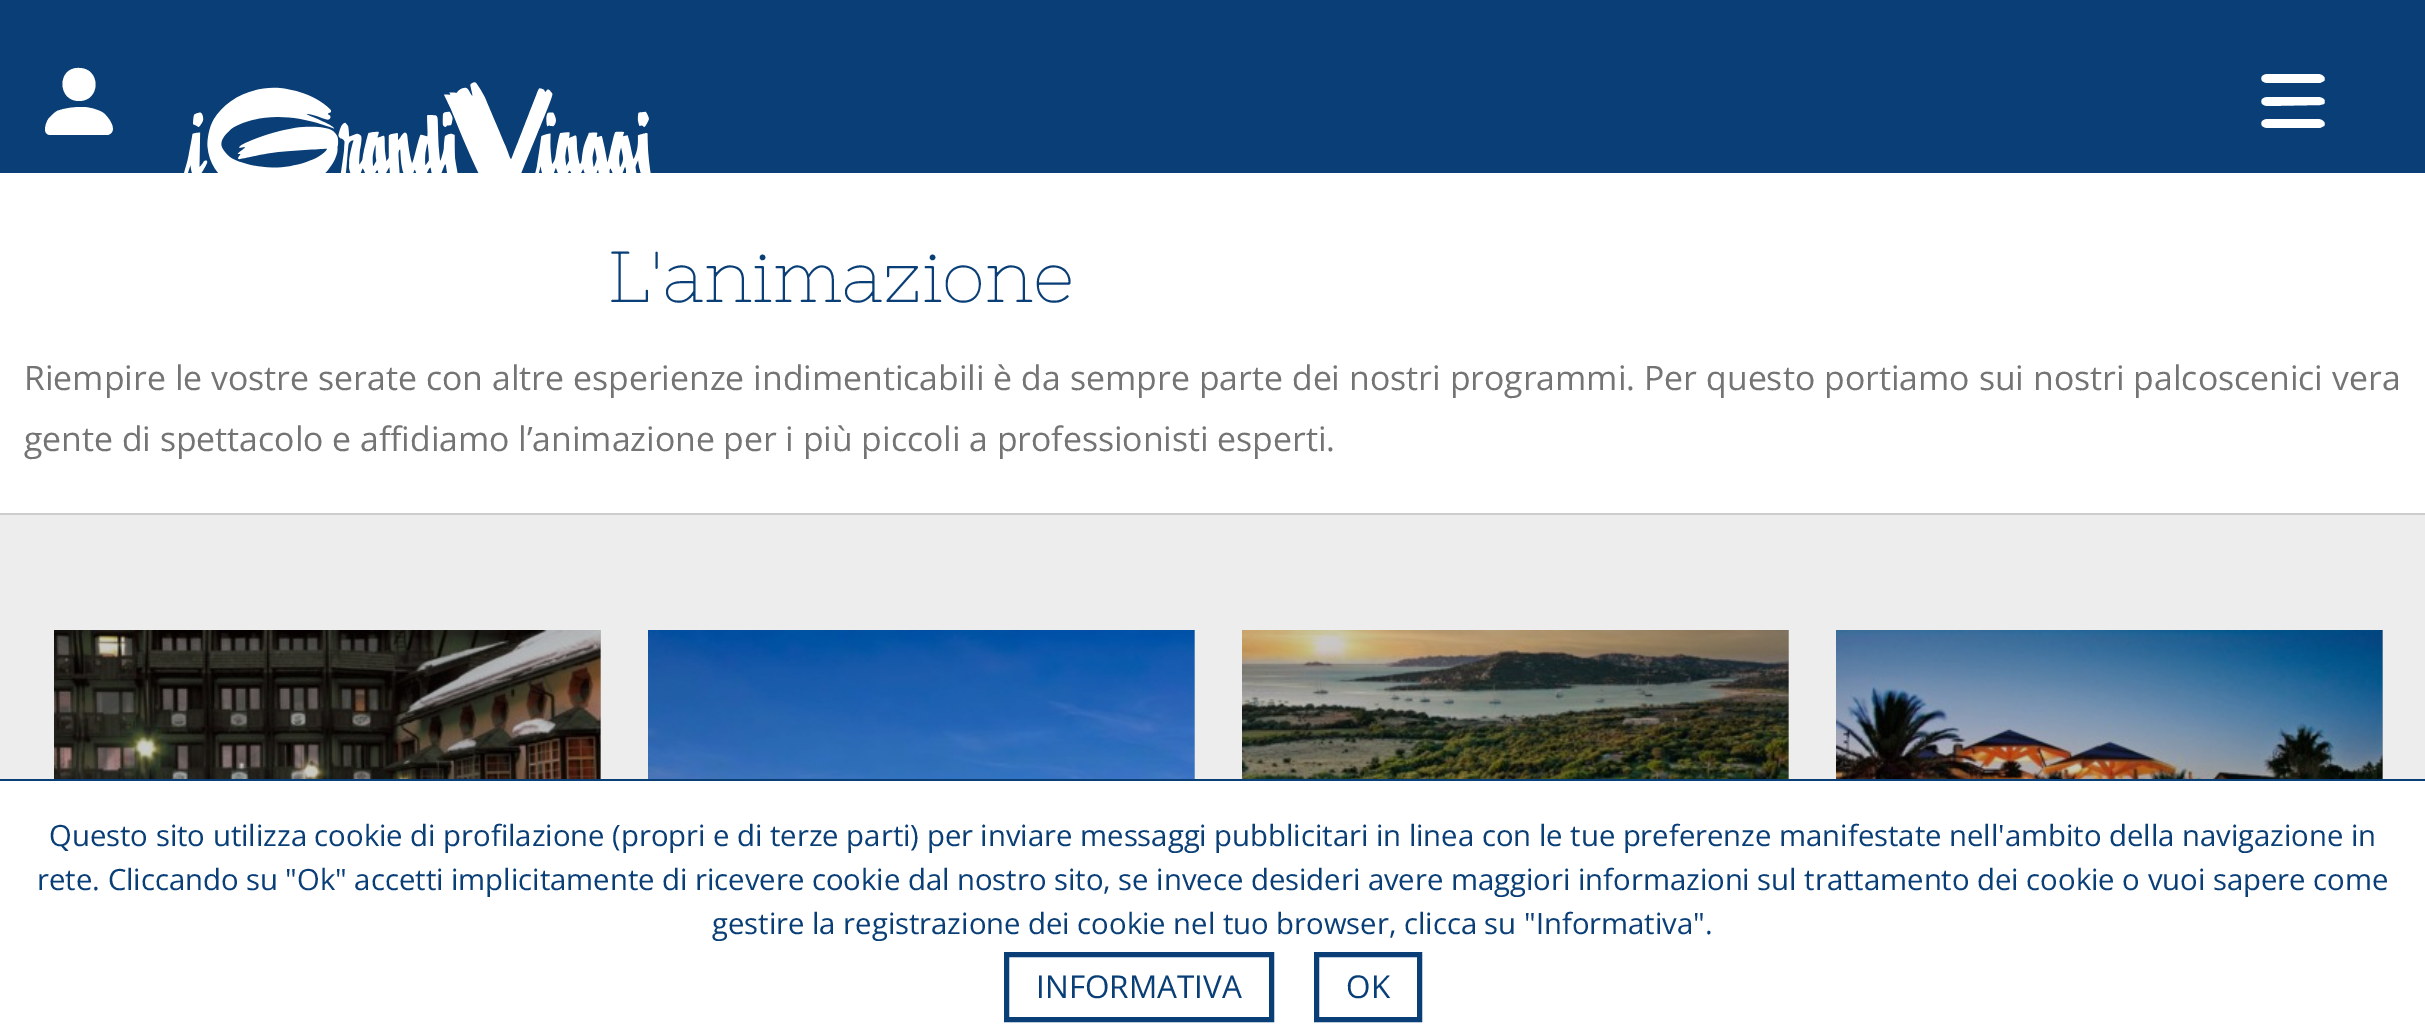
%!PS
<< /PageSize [2425 1028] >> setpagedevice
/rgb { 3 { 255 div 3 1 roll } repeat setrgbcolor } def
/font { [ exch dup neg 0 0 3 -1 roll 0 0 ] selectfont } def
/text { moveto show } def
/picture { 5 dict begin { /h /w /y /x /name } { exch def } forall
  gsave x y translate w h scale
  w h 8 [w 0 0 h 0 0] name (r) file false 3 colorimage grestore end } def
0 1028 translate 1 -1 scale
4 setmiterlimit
255 255 255 rgb
0 0 2425 1028 rectfill
9 62 119 rgb
0 0 2425 173 rectfill
255 255 255 rgb
51 135 moveto -10 0 -5 -13 -2 -17 rcurveto 3 -3 5 -5 8 -7 rcurveto 8 -3 17 -4 25 -4 rcurveto 7 0 14 2 20 5 rcurveto 5 3 16 17 8 22 rcurveto -2 1 rlineto closepath 79 101 moveto 22 0 22 -33 0 -33 rcurveto -22 -1 -22 33 0 33 rcurveto closepath fill
(img_01.rgb) 184 82 467 91 picture
2268 74 moveto 50 0 rlineto 3 0 9 3 6 7 rcurveto -4 2 rlineto -52 0 rlineto -9 0 -9 -9 0 -9 rcurveto closepath fill
2268 97 moveto 50 0 rlineto 3 0 9 2 6 7 rcurveto -4 1 rlineto -52 1 rlineto -9 0 -9 -9 0 -9 rcurveto closepath fill
2268 119 moveto 50 0 rlineto 3 0 9 3 6 7 rcurveto -4 2 rlineto -52 0 rlineto -9 0 -9 -9 0 -9 rcurveto closepath fill
gsave 0 515 moveto 2425 0 rlineto 0 264 rlineto -2425 0 rlineto closepath clip newpath
<< /ShadingType 2 /ColorSpace /DeviceRGB /Coords [1213 515 1213 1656] /Extend [true true] /Function << /FunctionType 3 /Domain [0 1] /Functions [<< /FunctionType 2 /Domain [0 1] /C0 [0.929 0.929 0.929] /C1 [0.929 0.929 0.929] /N 1 >> << /FunctionType 2 /Domain [0 1] /C0 [0.929 0.929 0.929] /C1 [1 1 1] /N 1 >>] /Bounds [0.5] /Encode [0 1 0 1] >> >> shfill grestore
gsave 2382 630 moveto 1 0 rlineto 0 149 rlineto -1 0 rlineto closepath clip newpath
<< /ShadingType 2 /ColorSpace /DeviceRGB /Coords [1213 515 1213 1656] /Extend [true true] /Function << /FunctionType 3 /Domain [0 1] /Functions [<< /FunctionType 2 /Domain [0 1] /C0 [0.745 0.745 0.745] /C1 [0.745 0.745 0.745] /N 1 >> << /FunctionType 2 /Domain [0 1] /C0 [0.745 0.745 0.745] /C1 [0.8 0.8 0.8] /N 1 >>] /Bounds [0.5] /Encode [0 1 0 1] >> >> shfill grestore
gsave 1788 630 moveto 1 0 rlineto 0 149 rlineto -1 0 rlineto closepath clip newpath
<< /ShadingType 2 /ColorSpace /DeviceRGB /Coords [1213 515 1213 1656] /Extend [true true] /Function << /FunctionType 3 /Domain [0 1] /Functions [<< /FunctionType 2 /Domain [0 1] /C0 [0.745 0.745 0.745] /C1 [0.745 0.745 0.745] /N 1 >> << /FunctionType 2 /Domain [0 1] /C0 [0.745 0.745 0.745] /C1 [0.8 0.8 0.8] /N 1 >>] /Bounds [0.5] /Encode [0 1 0 1] >> >> shfill grestore
gsave 1194 630 moveto 1 0 rlineto 0 149 rlineto -1 0 rlineto closepath clip newpath
<< /ShadingType 2 /ColorSpace /DeviceRGB /Coords [1213 515 1213 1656] /Extend [true true] /Function << /FunctionType 3 /Domain [0 1] /Functions [<< /FunctionType 2 /Domain [0 1] /C0 [0.745 0.745 0.745] /C1 [0.745 0.745 0.745] /N 1 >> << /FunctionType 2 /Domain [0 1] /C0 [0.745 0.745 0.745] /C1 [0.8 0.8 0.8] /N 1 >>] /Bounds [0.5] /Encode [0 1 0 1] >> >> shfill grestore
gsave 600 630 moveto 1 0 rlineto 0 149 rlineto -1 0 rlineto closepath clip newpath
<< /ShadingType 2 /ColorSpace /DeviceRGB /Coords [1213 515 1213 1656] /Extend [true true] /Function << /FunctionType 3 /Domain [0 1] /Functions [<< /FunctionType 2 /Domain [0 1] /C0 [0.745 0.745 0.745] /C1 [0.745 0.745 0.745] /N 1 >> << /FunctionType 2 /Domain [0 1] /C0 [0.745 0.745 0.745] /C1 [0.8 0.8 0.8] /N 1 >>] /Bounds [0.5] /Encode [0 1 0 1] >> >> shfill grestore
204 204 204 rgb
0 513 2425 2 rectfill
(img_02.rgb) 54 630 547 149 picture
(img_03.rgb) 648 630 547 149 picture
(img_04.rgb) 1242 630 547 149 picture
(img_05.rgb) 1836 630 547 149 picture
9 62 119 rgb
0 779 2425 2 rectfill
5 setlinewidth
1006.5 954.5 265 65 rectstroke
1316.5 954.5 103 65 rectstroke
/NixieOne-Regular 72 font
(L'animazione) 608 302 text
/OpenSans-Regular 33.75 font
116 116 116 rgb
24 390 moveto 0.3 0 32 (Riempire le vostre serate con altre esperienze indimenticabili è da sempre parte dei nostri programmi. Per questo portiamo sui nostri palcoscenici vera) widthshow
(gente di spettacolo e affidiamo l’animazione per i più piccoli a professionisti esperti.) 24 451 text
/OpenSans-Regular 29.25 font
9 62 119 rgb
(Questo sito utilizza cookie di profilazione \(propri e di terze parti\) per inviare messaggi pubblicitari in linea con le tue preferenze manifestate nell'ambito della navigazione in) 49 846 text
(rete. Cliccando su "Ok" accetti implicitamente di ricevere cookie dal nostro sito, se invece desideri avere maggiori informazioni sul trattamento dei cookie o vuoi sapere come) 37 890 text
(gestire la registrazione dei cookie nel tuo browser, clicca su "Informativa".) 712 934 text
/OpenSans-Regular 31.5 font
(INFORMATIVA) 1036 998 text
(OK) 1346 998 text
showpage
